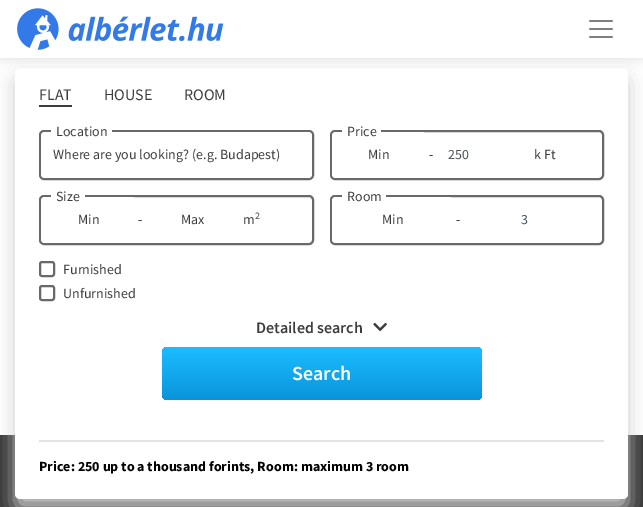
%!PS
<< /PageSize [643 507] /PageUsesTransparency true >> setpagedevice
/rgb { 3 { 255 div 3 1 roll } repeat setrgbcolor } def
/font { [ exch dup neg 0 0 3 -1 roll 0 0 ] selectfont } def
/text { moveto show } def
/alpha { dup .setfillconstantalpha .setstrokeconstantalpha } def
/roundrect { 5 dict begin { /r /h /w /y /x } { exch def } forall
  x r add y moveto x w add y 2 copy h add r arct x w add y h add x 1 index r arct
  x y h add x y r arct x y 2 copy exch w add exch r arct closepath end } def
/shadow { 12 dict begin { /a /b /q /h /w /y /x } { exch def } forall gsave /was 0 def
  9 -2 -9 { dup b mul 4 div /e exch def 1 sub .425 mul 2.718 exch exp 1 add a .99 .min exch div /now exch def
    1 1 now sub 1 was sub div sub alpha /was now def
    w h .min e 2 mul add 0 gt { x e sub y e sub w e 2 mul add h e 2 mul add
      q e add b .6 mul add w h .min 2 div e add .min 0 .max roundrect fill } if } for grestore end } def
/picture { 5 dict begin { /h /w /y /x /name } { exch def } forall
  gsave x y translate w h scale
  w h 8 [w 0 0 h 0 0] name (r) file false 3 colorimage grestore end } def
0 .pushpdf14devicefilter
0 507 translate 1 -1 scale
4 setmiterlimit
255 255 255 rgb
0 0 643 507 rectfill
51 51 51 rgb
0 435 643 72 rectfill
204 204 204 rgb
15 78 613 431 5 10 1 shadow
255 255 255 rgb
15 68 613 431 5 roundrect fill
0 0 0 rgb
0 2 643 58 0 5 0.1 shadow
255 255 255 rgb
0 0 643 58 rectfill
(img_01.rgb) 17 8 207 42 picture
(img_02.rgb) 589 20 24 18 picture
61 61 61 rgb
39 105 33 2 rectfill
226 227 228 rgb
39 440 565 2 rectfill
105 105 105 rgb
2 setlinewidth
40 131 273 48 4 roundrect stroke
255 255 255 rgb
51 130 61 2 rectfill
41 132 271 46 4 roundrect fill
105 105 105 rgb
331 131 272 48 4 roundrect stroke
255 255 255 rgb
342 130 39 2 rectfill
332 132 94 46 4 roundrect fill
105 105 105 rgb
40 196 273 48 4 roundrect stroke
255 255 255 rgb
51 195 34 2 rectfill
41 197 95 46 4 roundrect fill
105 105 105 rgb
331 196 272 48 4 roundrect stroke
255 255 255 rgb
342 195 44 2 rectfill
332 197 121 46 4 roundrect fill
105 105 105 rgb
40 262 14 14 2 roundrect stroke
40 286 14 14 2 roundrect stroke
(img_03.rgb) 373 322 14 10 picture
gsave
162 347 320 53 5 roundrect clip newpath
gsave 162 347 moveto 320 0 rlineto 0 2 rlineto -320 0 rlineto closepath clip newpath
<< /ShadingType 2 /ColorSpace /DeviceRGB /Coords [322 153 322 349] /Extend [true true] /Function << /FunctionType 3 /Domain [0 1] /Functions [<< /FunctionType 2 /Domain [0 1] /C0 [0.11 0.733 1] /C1 [0.016 0.541 0.816] /N 1 >> << /FunctionType 2 /Domain [0 1] /C0 [0.016 0.541 0.816] /C1 [0.016 0.541 0.816] /N 1 >> << /FunctionType 2 /Domain [0 1] /C0 [0.016 0.541 0.816] /C1 [0.11 0.733 1] /N 1 >>] /Bounds [0.33 0.67] /Encode [0 1 0 1 0 1] >> >> shfill grestore
gsave 162 349 moveto 320 0 rlineto 0 46 rlineto 0 3 -2 5 -5 5 rcurveto -310 0 rlineto -3 0 -5 -2 -5 -5 rcurveto closepath clip newpath
<< /ShadingType 2 /ColorSpace /DeviceRGB /Coords [322 349 322 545] /Extend [true true] /Function << /FunctionType 3 /Domain [0 1] /Functions [<< /FunctionType 2 /Domain [0 1] /C0 [0.11 0.733 1] /C1 [0.016 0.541 0.816] /N 1 >> << /FunctionType 2 /Domain [0 1] /C0 [0.016 0.541 0.816] /C1 [0.016 0.541 0.816] /N 1 >> << /FunctionType 2 /Domain [0 1] /C0 [0.016 0.541 0.816] /C1 [0.11 0.733 1] /N 1 >>] /Bounds [0.33 0.67] /Encode [0 1 0 1 0 1] >> >> shfill grestore
grestore
/SourceSansPro-Regular 16 font
61 61 61 rgb
(FLAT) 39 100 text
(HOUSE) 104 100 text
(ROOM) 184 100 text
/SourceSansPro-Regular 14 font
(Location) 56 136 text
(Where are you looking? \(e.g. Budapest\)) 53 159 text
(Price) 347 136 text
(Min) 368 159 text
(-) 429 159 text
73 80 87 rgb
(250) 448 159 text
61 61 61 rgb
(k Ft) 534 159 text
(Size) 56 201 text
(Min) 78 224 text
(-) 138 224 text
(Max) 181 224 text
(m) 243 224 text
/SourceSansPro-Regular 10 font
(2) 255 219 text
/SourceSansPro-Regular 14 font
(Room) 347 201 text
(Min) 382 224 text
(-) 456 224 text
73 80 87 rgb
(3) 521 224 text
61 61 61 rgb
(Furnished) 63 274 text
(Unfurnished) 63 298 text
/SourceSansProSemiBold-SemiBold 16 font
(Detailed search) 256 333 text
/SourceSansProSemiBold-SemiBold 20 font
255 255 255 rgb
(Search) 292 380 text
/SourceSansPro-Bold 14 font
0 0 0 rgb
(Price: 250 up to a thousand forints, Room: maximum 3 room) 39 471 text
.poppdf14devicefilter showpage
